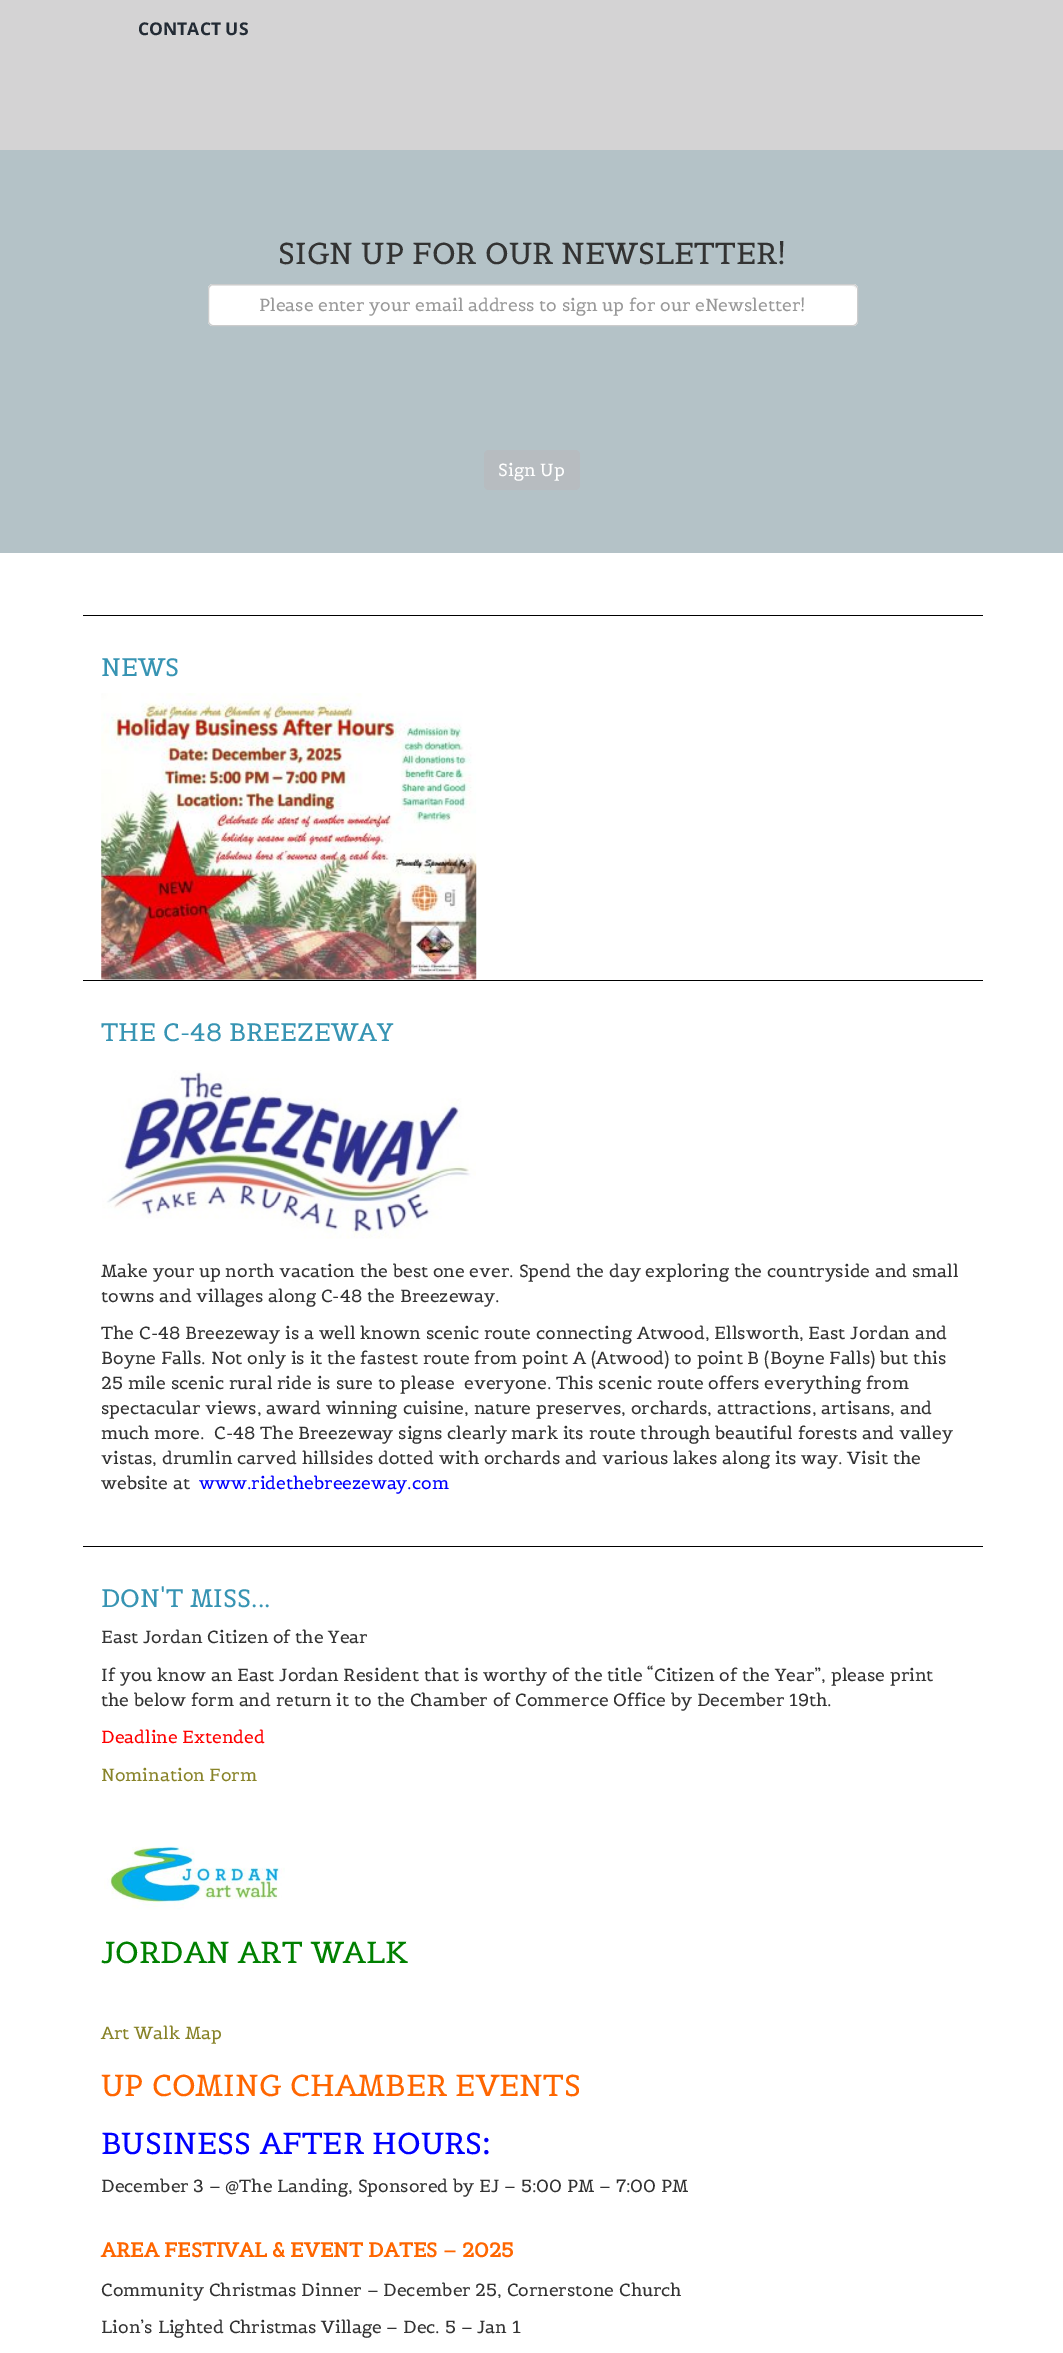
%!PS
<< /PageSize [1063 2353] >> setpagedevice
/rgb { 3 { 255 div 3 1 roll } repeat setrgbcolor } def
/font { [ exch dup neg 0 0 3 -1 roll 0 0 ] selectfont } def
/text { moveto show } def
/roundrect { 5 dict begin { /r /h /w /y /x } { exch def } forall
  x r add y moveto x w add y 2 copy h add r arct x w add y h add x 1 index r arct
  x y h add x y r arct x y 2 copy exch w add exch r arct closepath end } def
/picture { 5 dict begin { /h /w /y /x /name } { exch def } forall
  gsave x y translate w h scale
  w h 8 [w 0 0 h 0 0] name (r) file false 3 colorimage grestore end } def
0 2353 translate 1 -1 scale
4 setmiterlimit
255 255 255 rgb
0 0 1063 2353 rectfill
212 211 212 rgb
0 0 1063 150 rectfill
180 194 199 rgb
0 150 1063 403 rectfill
255 255 255 rgb
208 284 650 42 5 roundrect fill
236 236 236 rgb
212 286 moveto 640 0 rlineto 3 0 4 2 4 4 rcurveto 0 -3 -1 -5 -4 -5 rcurveto -639 0 rlineto -3 1 rlineto -1 1 rlineto 0 3 rlineto 0 -2 1 -4 3 -4 rcurveto closepath fill
204 204 204 rgb
208.5 284.5 649 41 4.5 roundrect stroke
183 188 192 rgb
484 450 96 40 5 roundrect fill
0 0 0 rgb
83 615 900 1 rectfill
(img_01.rgb) 101 693 376 287 picture
83 980 900 1 rectfill
(img_02.rgb) 102 1070 374 169 picture
83 1546 900 1 rectfill
(img_03.rgb) 104 1846 181 64 picture
/OpenSans-Bold 17.5 font
35 43 53 rgb
(CONTACT US) 138 35 text
/Belgrano-Regular 30 font
51 51 51 rgb
(SIGN UP FOR OUR NEWSLETTER!) 278 264 text
/Belgrano-Regular 17.5 font
153 153 153 rgb
(Please enter your email address to sign up for our eNewsletter!) 259 311 text
255 255 255 rgb
(Sign Up) 498 476 text
/Belgrano-Regular 25 font
55 148 179 rgb
(NEWS) 101 676 text
(THE C-48 BREEZEWAY) 101 1041 text
/Belgrano-Regular 17.5 font
51 51 51 rgb
(Make your up north vacation the best one ever. Spend the day exploring the countryside and small) 101 1277 text
(towns and villages along C-48 the Breezeway.) 101 1302 text
(The C-48 Breezeway is a well known scenic route connecting Atwood, Ellsworth, East Jordan and) 101 1339 text
(Boyne Falls. Not only is it the fastest route from point A \(Atwood\) to point B \(Boyne Falls\) but this) 101 1364 text
(25 mile scenic rural ride is sure to please  everyone. This scenic route offers everything from) 101 1389 text
(spectacular views, award winning cuisine, nature preserves, orchards, attractions, artisans, and) 101 1414 text
(much more.  C-48 The Breezeway signs clearly mark its route through beautiful forests and valley) 101 1439 text
(vistas, drumlin carved hillsides dotted with orchards and various lakes along its way. Visit the) 101 1464 text
(website at) 101 1489 text
0 0 255 rgb
(www.ridethebreezeway.com) 199 1489 text
/Belgrano-Regular 25 font
55 148 179 rgb
(DON'T MISS...) 101 1607 text
/Belgrano-Regular 17.5 font
51 51 51 rgb
(East Jordan Citizen of the Year) 101 1643 text
(If you know an East Jordan Resident that is worthy of the title “Citizen of the Year”, please print) 101 1681 text
(the below form and return it to the Chamber of Commerce Office by December 19th.) 101 1706 text
255 0 0 rgb
(Deadline Extended) 101 1743 text
136 131 40 rgb
(Nomination Form) 101 1781 text
/Belgrano-Regular 30 font
0 128 0 rgb
(JORDAN ART WALK) 101 1963 text
/Belgrano-Regular 17.5 font
136 131 40 rgb
(Art Walk Map) 101 2039 text
/Belgrano-Regular 30 font
255 102 0 rgb
(UP COMING CHAMBER EVENTS) 101 2096 text
0 0 255 rgb
(BUSINESS AFTER HOURS) 101 2154 text
/Belgrano-Bold 30 font
(:) 482 2154 text
/Belgrano-Regular 17.5 font
51 51 51 rgb
(December 3 – @The Landing, Sponsored by EJ – 5:00 PM – 7:00 PM) 101 2192 text
/Belgrano-Bold 20 font
255 102 0 rgb
(AREA FESTIVAL & EVENT DATES – 2025) 101 2257 text
/Belgrano-Regular 17.5 font
51 51 51 rgb
(Community Christmas Dinner – December 25, Cornerstone Church) 101 2296 text
(Lion’s Lighted Christmas Village – Dec. 5 – Jan 1) 101 2333 text
showpage
